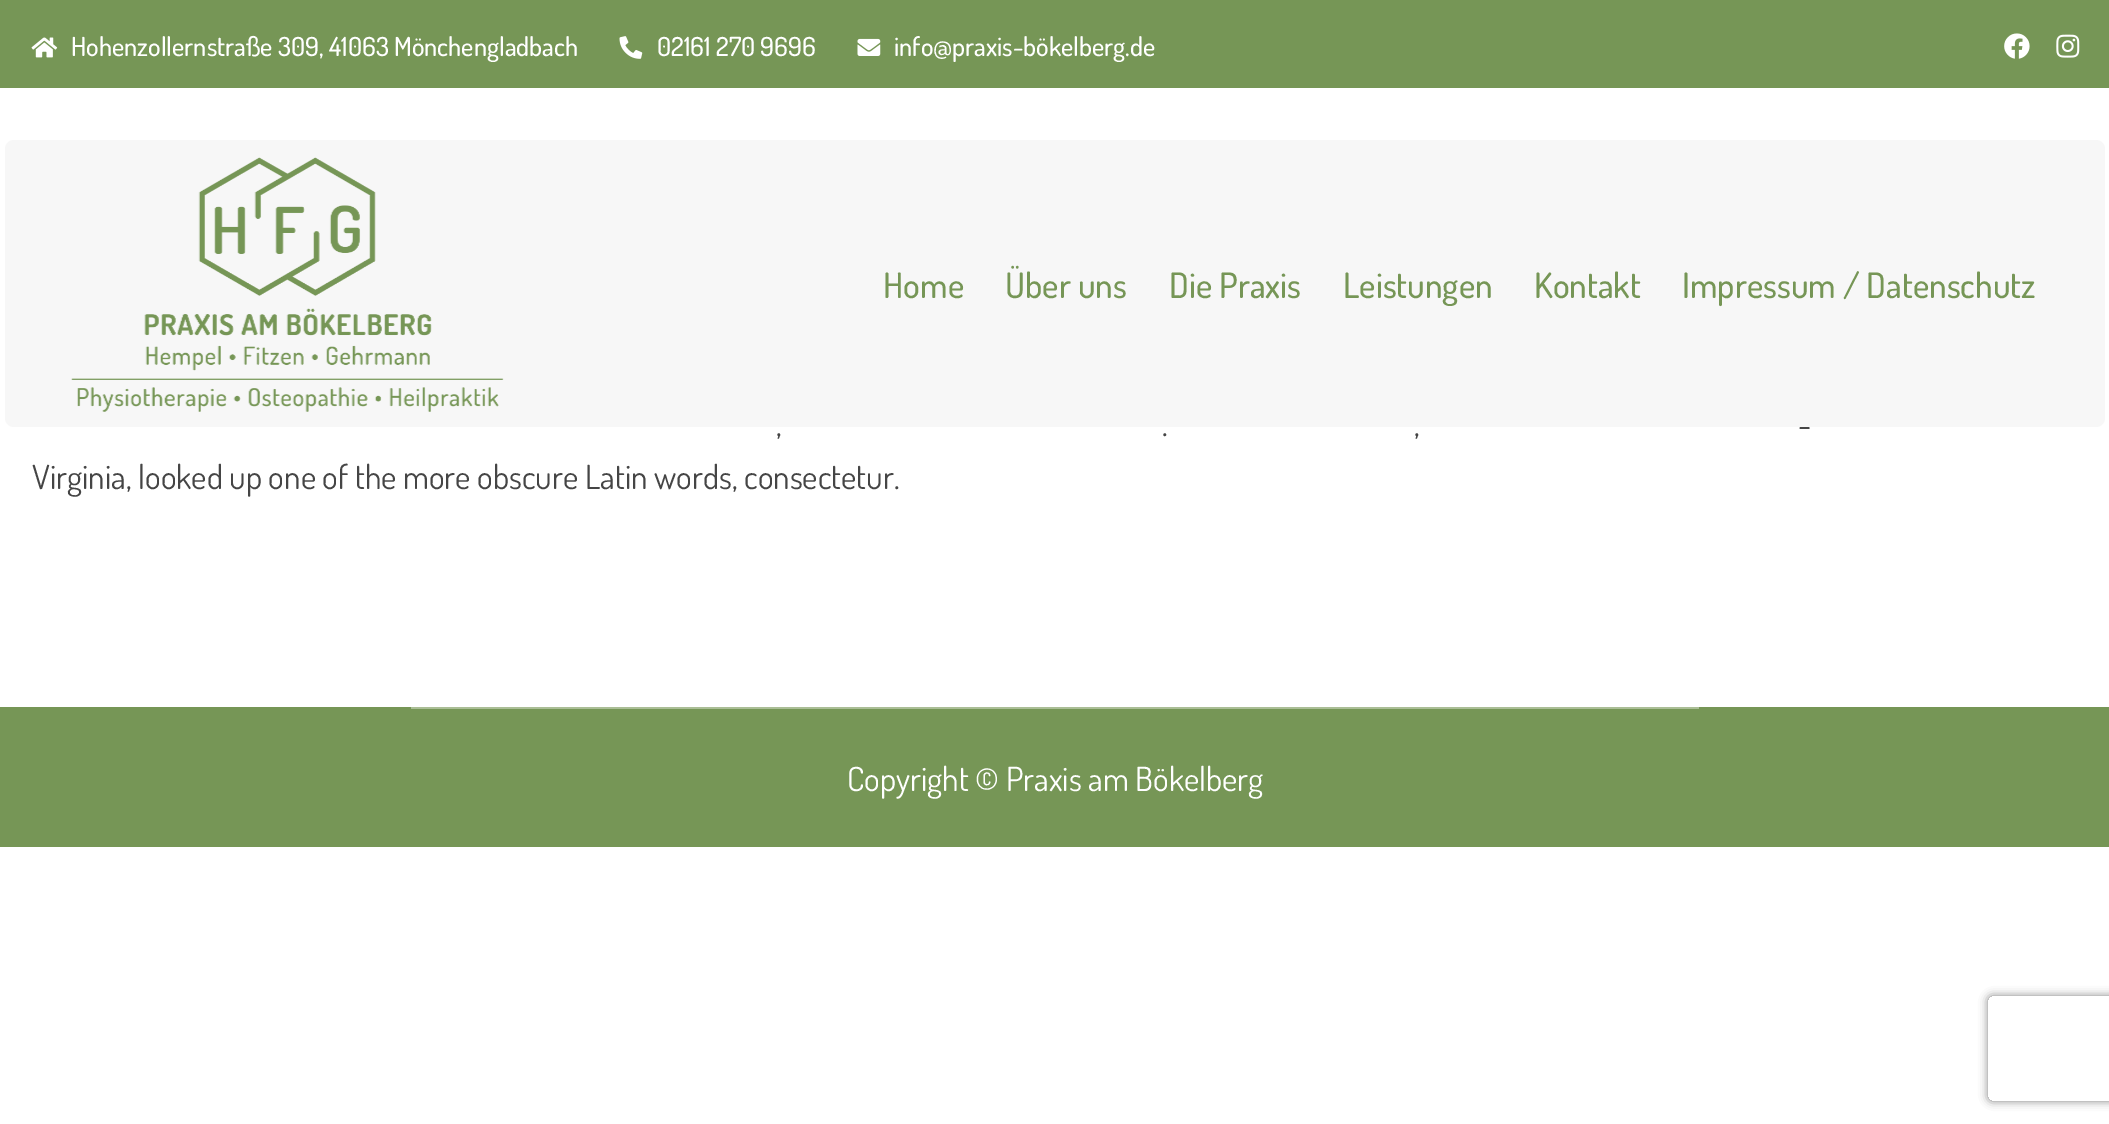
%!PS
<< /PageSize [2109 1124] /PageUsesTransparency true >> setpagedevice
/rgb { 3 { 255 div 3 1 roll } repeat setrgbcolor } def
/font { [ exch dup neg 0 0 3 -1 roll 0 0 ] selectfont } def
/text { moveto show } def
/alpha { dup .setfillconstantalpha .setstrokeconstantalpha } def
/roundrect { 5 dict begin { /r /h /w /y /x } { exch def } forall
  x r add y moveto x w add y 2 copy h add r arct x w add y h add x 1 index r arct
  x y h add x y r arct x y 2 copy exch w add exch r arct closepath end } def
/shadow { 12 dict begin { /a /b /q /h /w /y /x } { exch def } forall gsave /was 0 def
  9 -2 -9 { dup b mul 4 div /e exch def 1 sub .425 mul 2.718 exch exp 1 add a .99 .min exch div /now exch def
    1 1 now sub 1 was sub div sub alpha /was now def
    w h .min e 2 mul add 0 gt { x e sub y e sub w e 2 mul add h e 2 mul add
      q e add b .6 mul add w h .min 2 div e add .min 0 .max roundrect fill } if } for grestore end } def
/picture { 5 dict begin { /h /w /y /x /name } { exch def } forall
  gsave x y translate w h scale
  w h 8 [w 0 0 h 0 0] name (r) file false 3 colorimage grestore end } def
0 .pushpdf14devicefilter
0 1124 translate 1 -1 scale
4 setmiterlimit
255 255 255 rgb
0 0 2109 1124 rectfill
118 150 86 rgb
0 0 2109 88 rectfill
(img_01.rgb) 31 37 27 21 picture
(img_02.rgb) 619 36 24 23 picture
(img_03.rgb) 857 38 24 18 picture
(img_04.rgb) 2004 33 26 26 picture
(img_05.rgb) 2056 34 24 24 picture
247 247 247 rgb
5 140 2100 287 9 roundrect fill
(img_06.rgb) 71 157 433 255 picture
118 150 86 rgb
0 707 2109 140 rectfill
170 190 150 rgb
411 707 1288 2 rectfill
gsave
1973 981 moveto 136 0 rlineto 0 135 rlineto -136 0 rlineto closepath 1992 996 moveto 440 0 rlineto 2 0 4 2 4 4 rcurveto 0 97 rlineto 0 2 -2 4 -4 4 rcurveto -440 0 rlineto -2 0 -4 -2 -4 -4 rcurveto 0 -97 rlineto 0 -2 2 -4 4 -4 rcurveto closepath eoclip newpath
128 128 128 rgb
1988 996 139 105 4 4.5 1 shadow
grestore
/Dosis-Medium 26.25 font
255 255 255 rgb
(Hohenzollernstraße 309, 41063 Mönchengladbach) 71 56 text
(02161 270 9696) 657 56 text
(info@praxis-bökelberg.de) 894 56 text
/Dosis-Medium 35 font
118 150 86 rgb
(Home) 883 298 text
(Über uns) 1005 298 text
(Die Praxis) 1169 298 text
(Leistungen) 1343 298 text
(Kontakt) 1534 298 text
(Impressum / Datenschutz) 1682 298 text
/Dosis-Regular 33.25 font
69 69 69 rgb
(-) 1798 436 text
(,) 776 436 text
(.) 1162 436 text
(,) 1414 436 text
(Virginia, looked up one of the more obscure Latin words, consectetur.) 32 489 text
255 255 255 rgb
(Copyright © Praxis am Bökelberg) 847 791 text
.poppdf14devicefilter showpage
